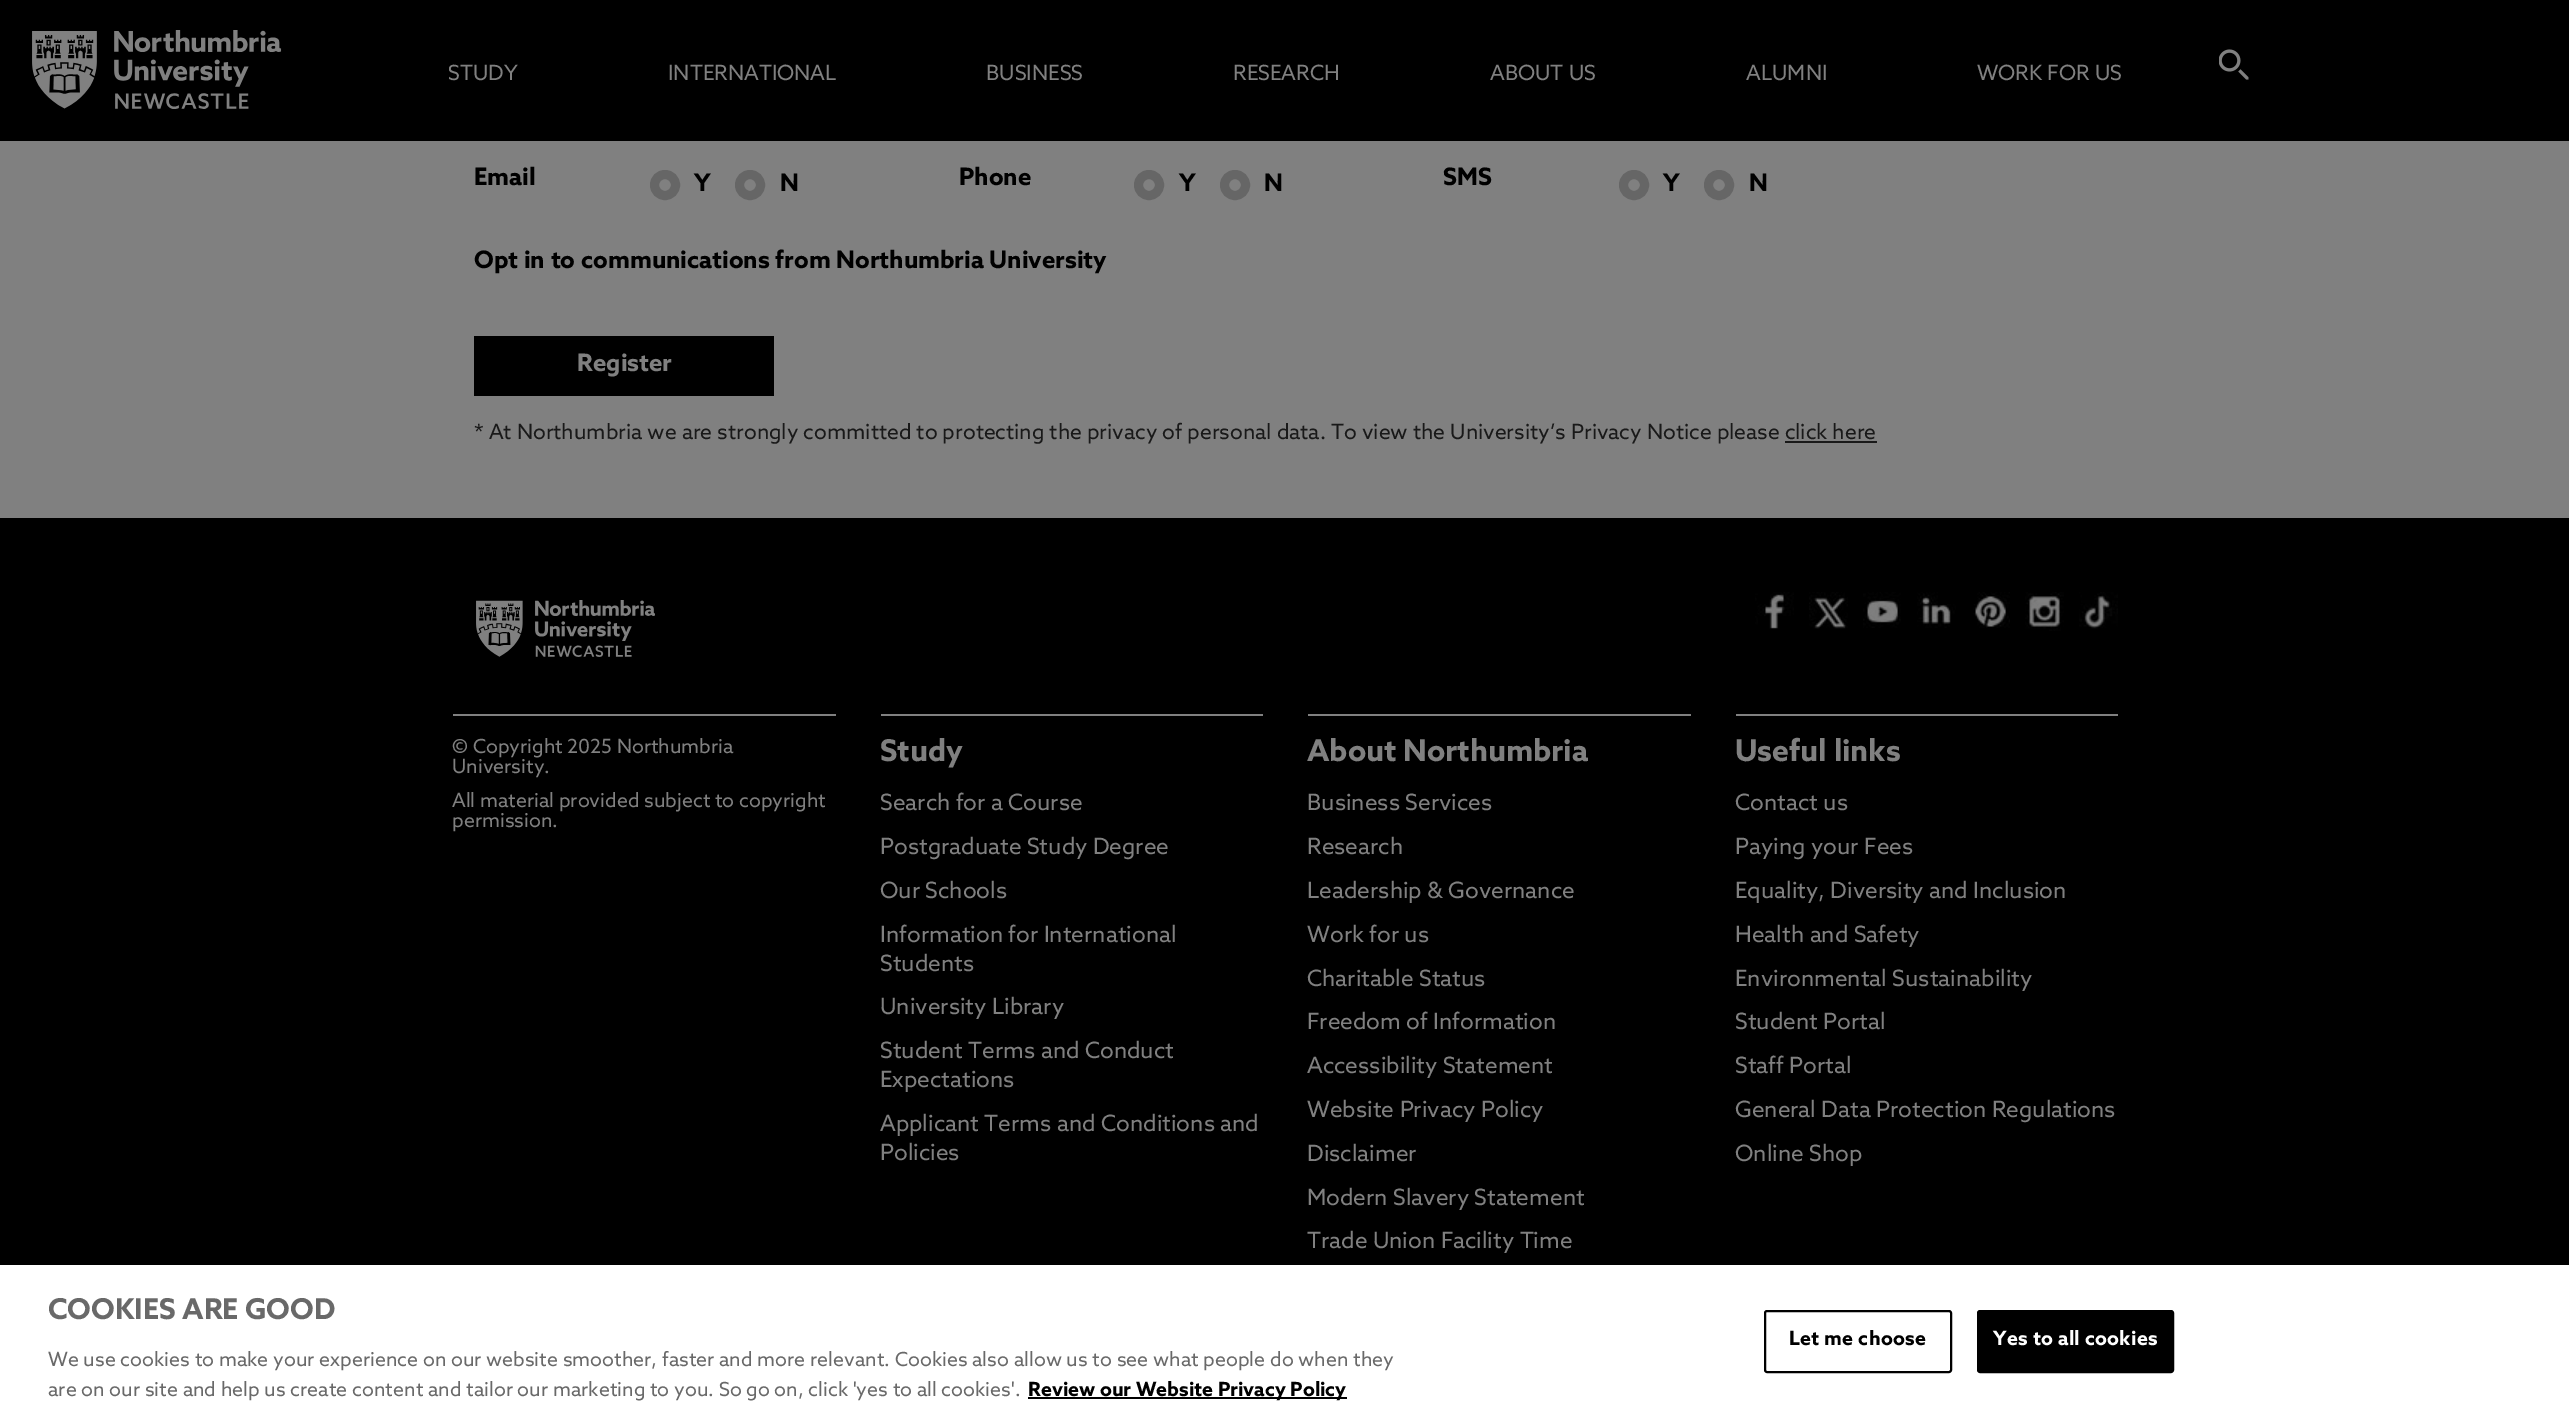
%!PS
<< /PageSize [2569 1420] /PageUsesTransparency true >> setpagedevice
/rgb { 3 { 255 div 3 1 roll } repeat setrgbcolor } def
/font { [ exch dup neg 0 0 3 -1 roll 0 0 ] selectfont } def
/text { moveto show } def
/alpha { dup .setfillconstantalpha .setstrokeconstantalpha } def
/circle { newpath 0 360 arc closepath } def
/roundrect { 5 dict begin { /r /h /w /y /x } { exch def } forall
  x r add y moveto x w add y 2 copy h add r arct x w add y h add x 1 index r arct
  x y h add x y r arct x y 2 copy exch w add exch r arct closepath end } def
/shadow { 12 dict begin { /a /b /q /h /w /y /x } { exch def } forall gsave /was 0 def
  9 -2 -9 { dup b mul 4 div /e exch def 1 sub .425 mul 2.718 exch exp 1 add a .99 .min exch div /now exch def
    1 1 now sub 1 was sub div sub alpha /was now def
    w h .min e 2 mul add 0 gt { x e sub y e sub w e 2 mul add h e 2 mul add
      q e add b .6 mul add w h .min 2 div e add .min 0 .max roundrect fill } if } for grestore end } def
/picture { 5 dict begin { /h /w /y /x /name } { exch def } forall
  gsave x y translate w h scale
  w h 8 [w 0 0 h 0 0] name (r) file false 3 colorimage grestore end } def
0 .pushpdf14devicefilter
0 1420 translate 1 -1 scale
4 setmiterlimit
128 128 128 rgb
0 0 2569 1420 rectfill
0 0 0 rgb
0 0 2569 141 rectfill
(img_01.rgb) 32 30 250 79 picture
(img_02.rgb) 2219 49 30 31 picture
102 102 102 rgb
9 setlinewidth
665 185 10.5 circle stroke
750 185 10.5 circle stroke
1149 185 10.5 circle stroke
1235 185 10.5 circle stroke
1634 185 10.5 circle stroke
1719 185 10.5 circle stroke
0 0 0 rgb
474 336 300 60 rectfill
25 25 25 rgb
1785 441 92 2 rectfill
0 0 0 rgb
0 518 2569 747 rectfill
(img_03.rgb) 476 600 179 57 picture
(img_04.rgb) 1755 592 39 37 picture
(img_05.rgb) 1809 592 39 37 picture
(img_06.rgb) 1863 592 38 36 picture
(img_07.rgb) 1917 592 39 36 picture
(img_08.rgb) 1973 592 37 36 picture
(img_09.rgb) 2025 592 39 39 picture
(img_10.rgb) 2079 592 39 37 picture
128 128 128 rgb
453 714 383 2 rectfill
881 714 382 2 rectfill
1308 714 383 2 rectfill
1736 714 382 2 rectfill
0 0 0 rgb
0 1265 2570 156 0 13.5 0.2 shadow
255 255 255 rgb
0 1265 2569 155 rectfill
0 0 0 rgb
1028 1397 319 2 rectfill
2 setlinewidth
1765 1311 186 61 2 roundrect stroke
1978 1311 195 61 2 roundrect gsave fill grestore
stroke
/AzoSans-Regular 21 font
128 128 128 rgb
(STUDY) 448 80 text
(INTERNATIONAL) 668 80 text
(BUSINESS) 986 80 text
(RESEARCH) 1233 80 text
(ABOUT US) 1490 80 text
(ALUMNI) 1746 80 text
(WORK FOR US) 1977 80 text
/AzoSans-Bold 24 font
0 0 0 rgb
(Email) 474 185 text
(Y) 694 191 text
(N) 780 191 text
(Phone) 959 185 text
(Y) 1179 191 text
(N) 1264 191 text
(SMS) 1443 185 text
(Y) 1663 191 text
(N) 1749 191 text
(Opt in to communications from Northumbria University) 474 268 text
128 128 128 rgb
(Register) 577 371 text
/AzoSans-Regular 21 font
25 25 25 rgb
(* At Northumbria we are strongly committed to protecting the privacy of personal data. To view the University’s Privacy Notice please click here) 474 439 text
/AzoSans-Regular 19.5 font
128 128 128 rgb
(© Copyright 2025 Northumbria) 452 753 text
(University.) 452 773 text
(All material provided subject to copyright) 452 807 text
(permission.) 452 827 text
/AzoSans-Bold 30 font
(Study) 880 761 text
/AzoSans-Regular 22.5 font
(Search for a Course) 880 810 text
(Postgraduate Study Degree) 880 854 text
(Our Schools) 880 898 text
(Information for International) 880 942 text
(Students) 880 971 text
(University Library) 880 1014 text
(Student Terms and Conduct) 880 1058 text
(Expectations) 880 1087 text
(Applicant Terms and Conditions and) 880 1131 text
(Policies) 880 1160 text
/AzoSans-Bold 30 font
(About Northumbria) 1307 761 text
/AzoSans-Regular 22.5 font
(Business Services) 1307 810 text
(Research) 1307 854 text
(Leadership & Governance) 1307 898 text
(Work for us) 1307 942 text
(Charitable Status) 1307 986 text
(Freedom of Information) 1307 1029 text
(Accessibility Statement) 1307 1073 text
(Website Privacy Policy) 1307 1117 text
(Disclaimer) 1307 1161 text
(Modern Slavery Statement) 1307 1205 text
(Trade Union Facility Time) 1307 1248 text
/AzoSans-Bold 30 font
(Useful links) 1735 761 text
/AzoSans-Regular 22.5 font
(Contact us) 1735 810 text
(Paying your Fees) 1735 854 text
(Equality, Diversity and Inclusion) 1735 898 text
(Health and Safety) 1735 942 text
(Environmental Sustainability) 1735 986 text
(Student Portal) 1735 1029 text
(Staff Portal) 1735 1073 text
(General Data Protection Regulations) 1735 1117 text
(Online Shop) 1735 1161 text
/AzoSans-Bold 28.75 font
105 105 105 rgb
(COOKIES ARE GOOD) 48 1319 text
/AzoSans-Regular 19.5 font
(We use cookies to make your experience on our website smoother, faster and more relevant. Cookies also allow us to see what people do when they) 48 1366 text
(are on our site and help us create content and tailor our marketing to you. So go on, click 'yes to all cookies'.) 48 1396 text
/AzoSans-Bold 19.5 font
0 0 0 rgb
(Review our Website Privacy Policy) 1028 1396 text
1789 1345 moveto 0.25 0 (Let me choose) ashow
255 255 255 rgb
1993 1345 moveto 0.25 0 (Yes to all cookies) ashow
.poppdf14devicefilter showpage
